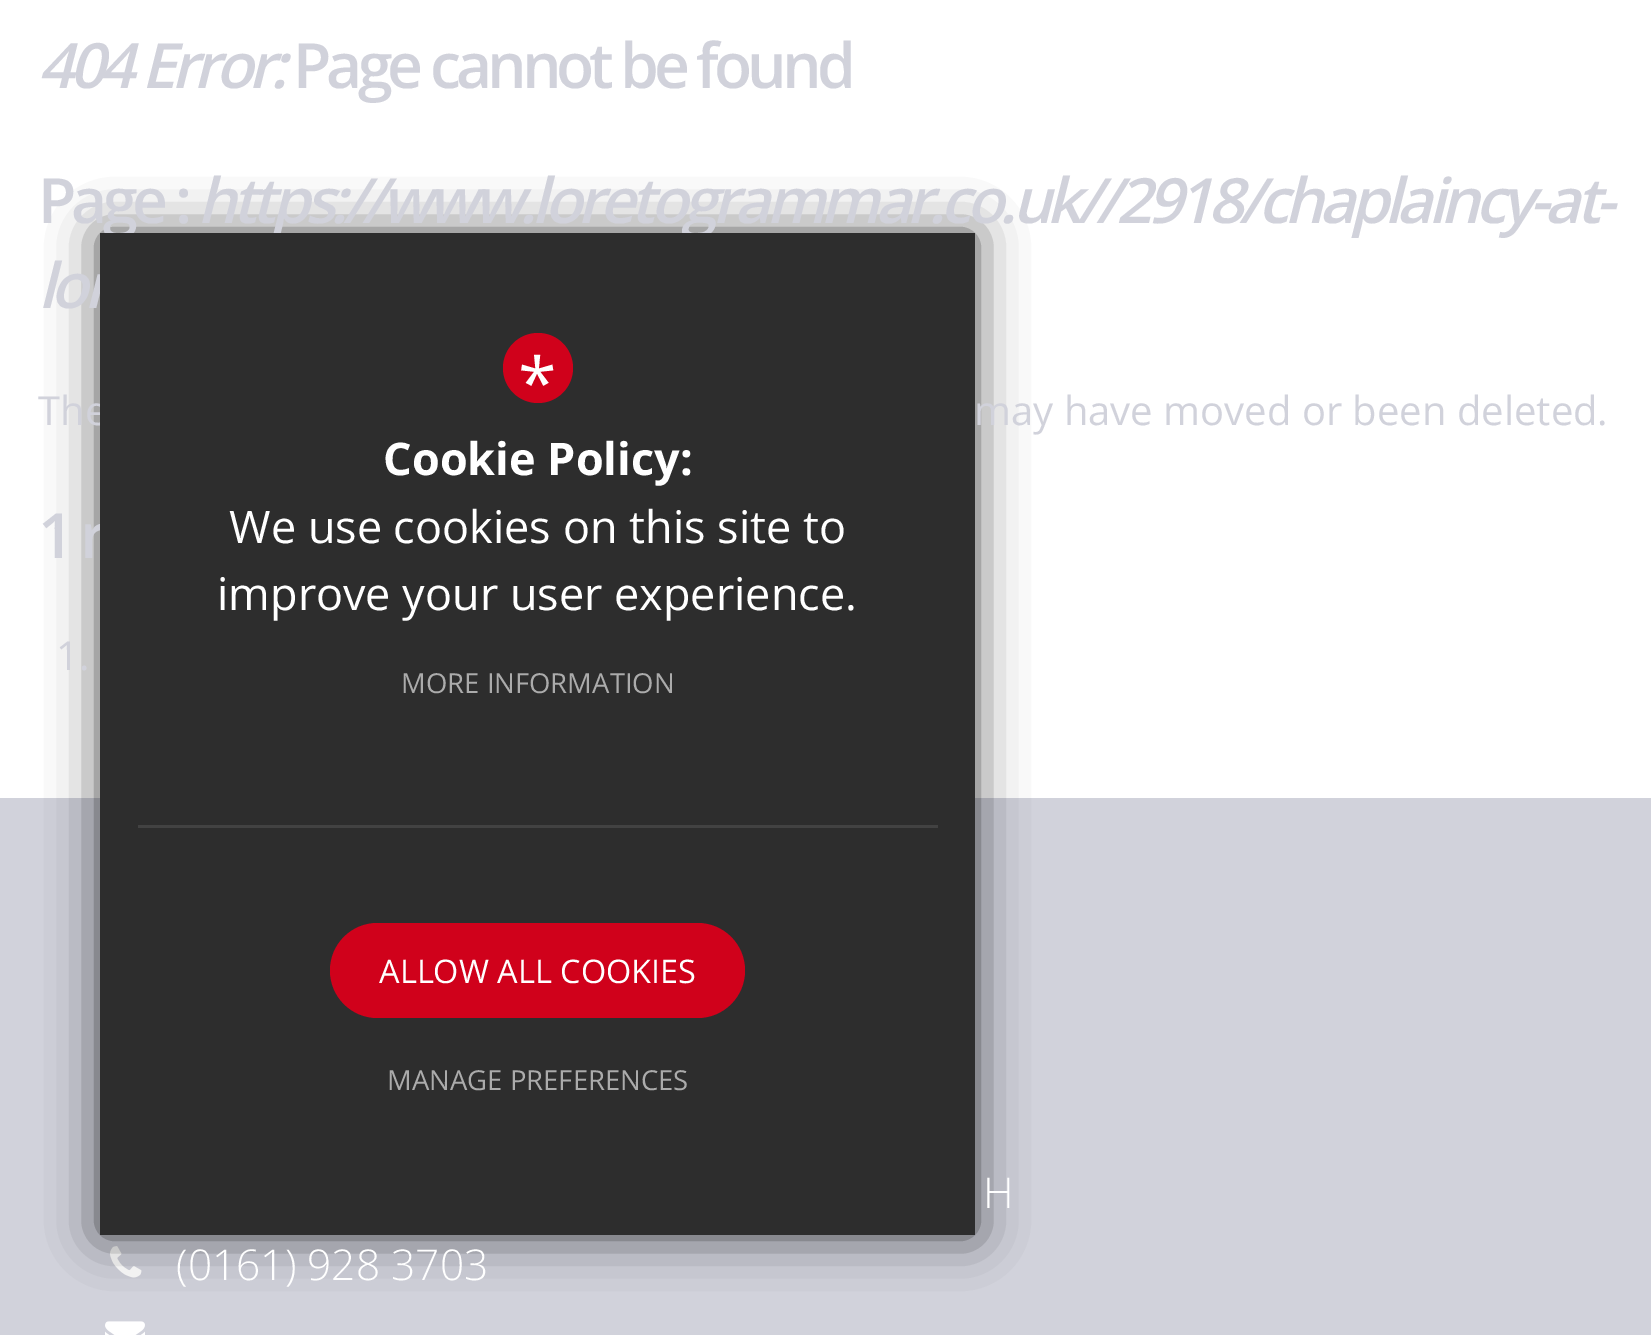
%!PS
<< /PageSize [1651 1335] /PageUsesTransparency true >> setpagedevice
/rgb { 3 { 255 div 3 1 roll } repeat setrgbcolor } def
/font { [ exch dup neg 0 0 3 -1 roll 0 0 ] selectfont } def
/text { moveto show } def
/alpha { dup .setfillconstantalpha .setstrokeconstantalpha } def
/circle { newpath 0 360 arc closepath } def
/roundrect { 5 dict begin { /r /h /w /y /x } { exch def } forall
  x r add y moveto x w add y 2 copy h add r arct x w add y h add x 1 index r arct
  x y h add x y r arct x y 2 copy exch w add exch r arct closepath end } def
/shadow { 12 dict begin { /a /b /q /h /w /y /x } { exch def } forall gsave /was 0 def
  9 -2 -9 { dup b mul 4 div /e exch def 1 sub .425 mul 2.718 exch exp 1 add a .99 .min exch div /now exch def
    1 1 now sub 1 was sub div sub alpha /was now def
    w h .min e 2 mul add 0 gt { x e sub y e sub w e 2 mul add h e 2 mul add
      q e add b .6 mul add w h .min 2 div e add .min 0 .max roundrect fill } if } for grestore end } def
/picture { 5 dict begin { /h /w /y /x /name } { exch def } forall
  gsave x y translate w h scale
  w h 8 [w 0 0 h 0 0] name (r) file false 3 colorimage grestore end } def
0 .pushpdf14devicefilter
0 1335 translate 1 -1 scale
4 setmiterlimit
255 255 255 rgb
0 0 1651 1335 rectfill
209 210 219 rgb
0 798 1651 537 rectfill
(img_01.rgb) 110 1246 32 32 picture
0 0 0 rgb
100 233 875 1002 0 25 0.7 shadow
(img_02.rgb) 105 1321 40 14 picture
/OpenSans-SemiBoldItalic 62.5 font
209 210 219 rgb
38 88 moveto -5 0 (404 Error:) ashow
/OpenSans-SemiBold 62.5 font
293 88 moveto -5 0 (Page cannot be found) ashow
38 223 moveto -5 0 (Page :) ashow
/OpenSans-SemiBoldItalic 62.5 font
197 223 moveto -5 0 (https://www.loretogrammar.co.uk//2918/chaplaincy-at-) ashow
38 308 moveto -5 0 (lor) ashow
/OpenSans-Regular 40 font
(The) 38 425 text
(may have moved or been deleted.) 974 425 text
/OpenSans-SemiBold 62.5 font
38 558 moveto -5 0 (1 r) ashow
/OpenSans-Regular 40 font
(1.) 56 670 text
45 45 45 rgb
100 233 875 1002 rectfill
66 66 66 rgb
138 825 800 3 rectfill
208 1 27 rgb
538 368 35 circle fill
/OpenSans-Regular 70 font
255 255 255 rgb
(*) 518 408 text
/OpenSans-Bold 45 font
(Cookie Policy:) 383 475 text
/OpenSans-Regular 45 font
(We use cookies on this site to) 229 543 text
(improve your user experience.) 217 610 text
/OpenSans-Regular 27.5 font
171 171 171 rgb
(MORE INFORMATION) 401 693 text
208 1 27 rgb
330 923 415 95 47.5 roundrect fill
/OpenSans-Regular 32.5 font
255 255 255 rgb
(ALLOW ALL COOKIES) 379 983 text
/OpenSans-Regular 27.5 font
171 171 171 rgb
(MANAGE PREFERENCES) 387 1090 text
/OpenSans-Light 42.5 font
255 255 255 rgb
(H) 983 1208 text
(\(0161\) 928 3703) 176 1280 text
.poppdf14devicefilter showpage
